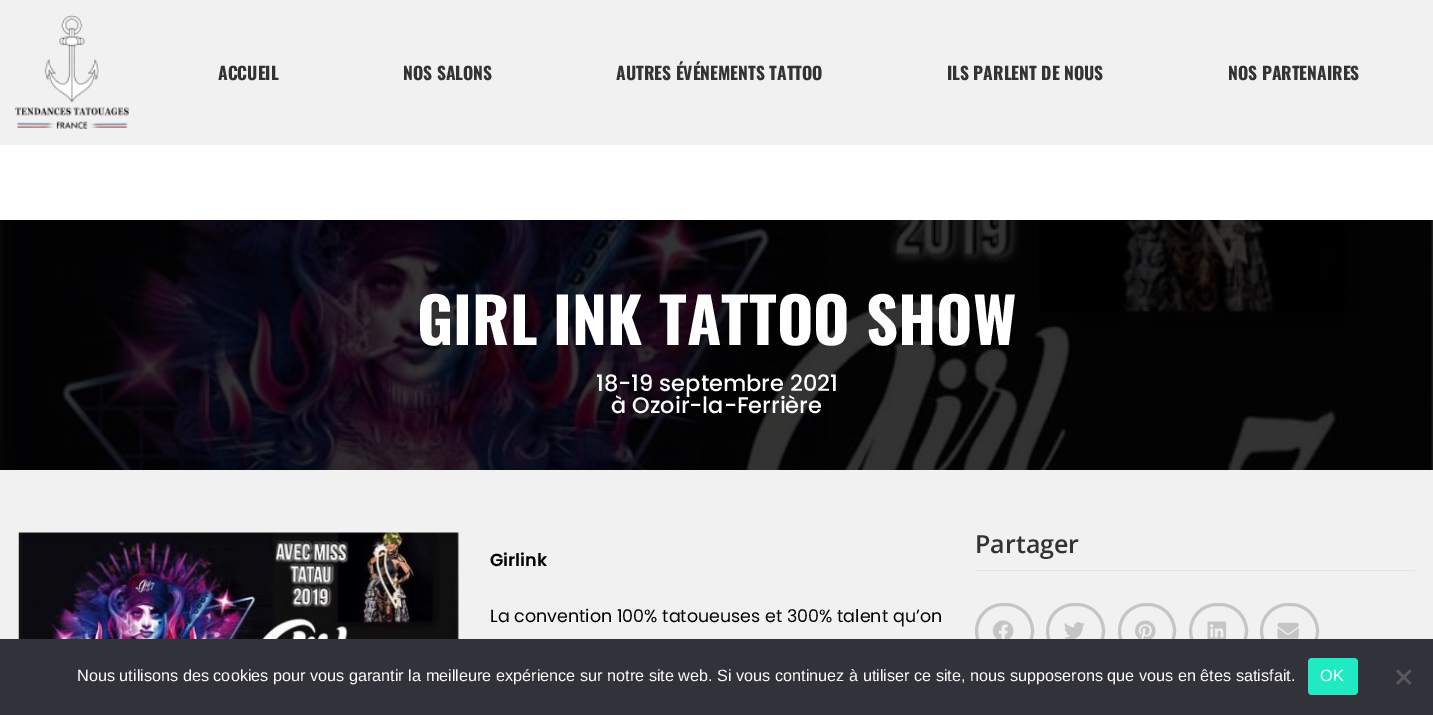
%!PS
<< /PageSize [1433 715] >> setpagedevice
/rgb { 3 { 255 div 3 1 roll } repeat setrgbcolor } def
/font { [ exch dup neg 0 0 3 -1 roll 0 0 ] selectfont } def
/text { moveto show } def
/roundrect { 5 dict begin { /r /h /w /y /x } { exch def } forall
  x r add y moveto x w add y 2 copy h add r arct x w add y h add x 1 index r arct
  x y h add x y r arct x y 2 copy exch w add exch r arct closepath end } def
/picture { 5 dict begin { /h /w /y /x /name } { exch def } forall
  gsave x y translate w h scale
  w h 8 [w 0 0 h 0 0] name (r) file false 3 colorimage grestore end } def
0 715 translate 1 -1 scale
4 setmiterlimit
255 255 255 rgb
0 0 1433 715 rectfill
241 241 241 rgb
0 0 1433 145 rectfill
(img_01.rgb) 14 15 115 114 picture
(img_02.rgb) 0 220 1433 250 picture
0 470 1433 169 rectfill
(img_03.rgb) 18 532 441 107 picture
227 227 227 rgb
975 570 440 1 rectfill
197 197 197 rgb
3 setlinewidth
976.5 604.5 56 53 26.5 roundrect stroke
(img_04.rgb) 992 620 22 19 picture
1047.5 604.5 56 53 26.5 roundrect stroke
(img_05.rgb) 1064 622 21 17 picture
1119.5 604.5 55 53 26.5 roundrect stroke
(img_06.rgb) 1135 620 21 19 picture
1190.5 604.5 56 53 26.5 roundrect stroke
(img_07.rgb) 1207 621 20 18 picture
1261.5 604.5 56 53 26.5 roundrect stroke
(img_08.rgb) 1277 622 22 17 picture
50 50 58 rgb
0 639 1433 76 rectfill
32 234 194 rgb
1308 658 50 37 4 roundrect fill
89 89 93 rgb
1409.5 669.5 moveto 2 2 rlineto -13.5 13 rlineto -2 -1.5 rlineto closepath fill
1396 671.5 moveto 2 -2 rlineto 13.5 13.5 rlineto -2 1.5 rlineto closepath fill
/Oswald-Bold 17.5 font
51 51 51 rgb
(ACCUEIL) 218 80 text
(NOS SALONS) 403 80 text
(AUTRES ÉVÉNEMENTS TATTOO) 616 80 text
(ILS PARLENT DE NOUS) 947 80 text
(NOS PARTENAIRES) 1228 80 text
/Oswald-Bold 62.5 font
255 255 255 rgb
(GIRL INK TATTOO SHOW) 417 345 text
/Poppins-Medium 22.5 font
(18-19 septembre 2021) 596 391 text
(à Ozoir-la-Ferrière) 611 413 text
/OpenSans-SemiBold 25 font
51 51 51 rgb
(Partager) 975 553 text
/Poppins-SemiBold 17.5 font
0 0 0 rgb
(Girlink) 490 566 text
/Poppins-Regular 17.5 font
(La convention 100% tatoueuses et 300% talent qu’on) 490 622 text
/LiberationSans-Regular 16.25 font
255 255 255 rgb
(Nous utilisons des cookies pour vous garantir la meilleure expérience sur notre site web. Si vous continuez à utiliser ce site, nous supposerons que vous en êtes satisfait.) 77 681 text
(OK) 1320 681 text
showpage
